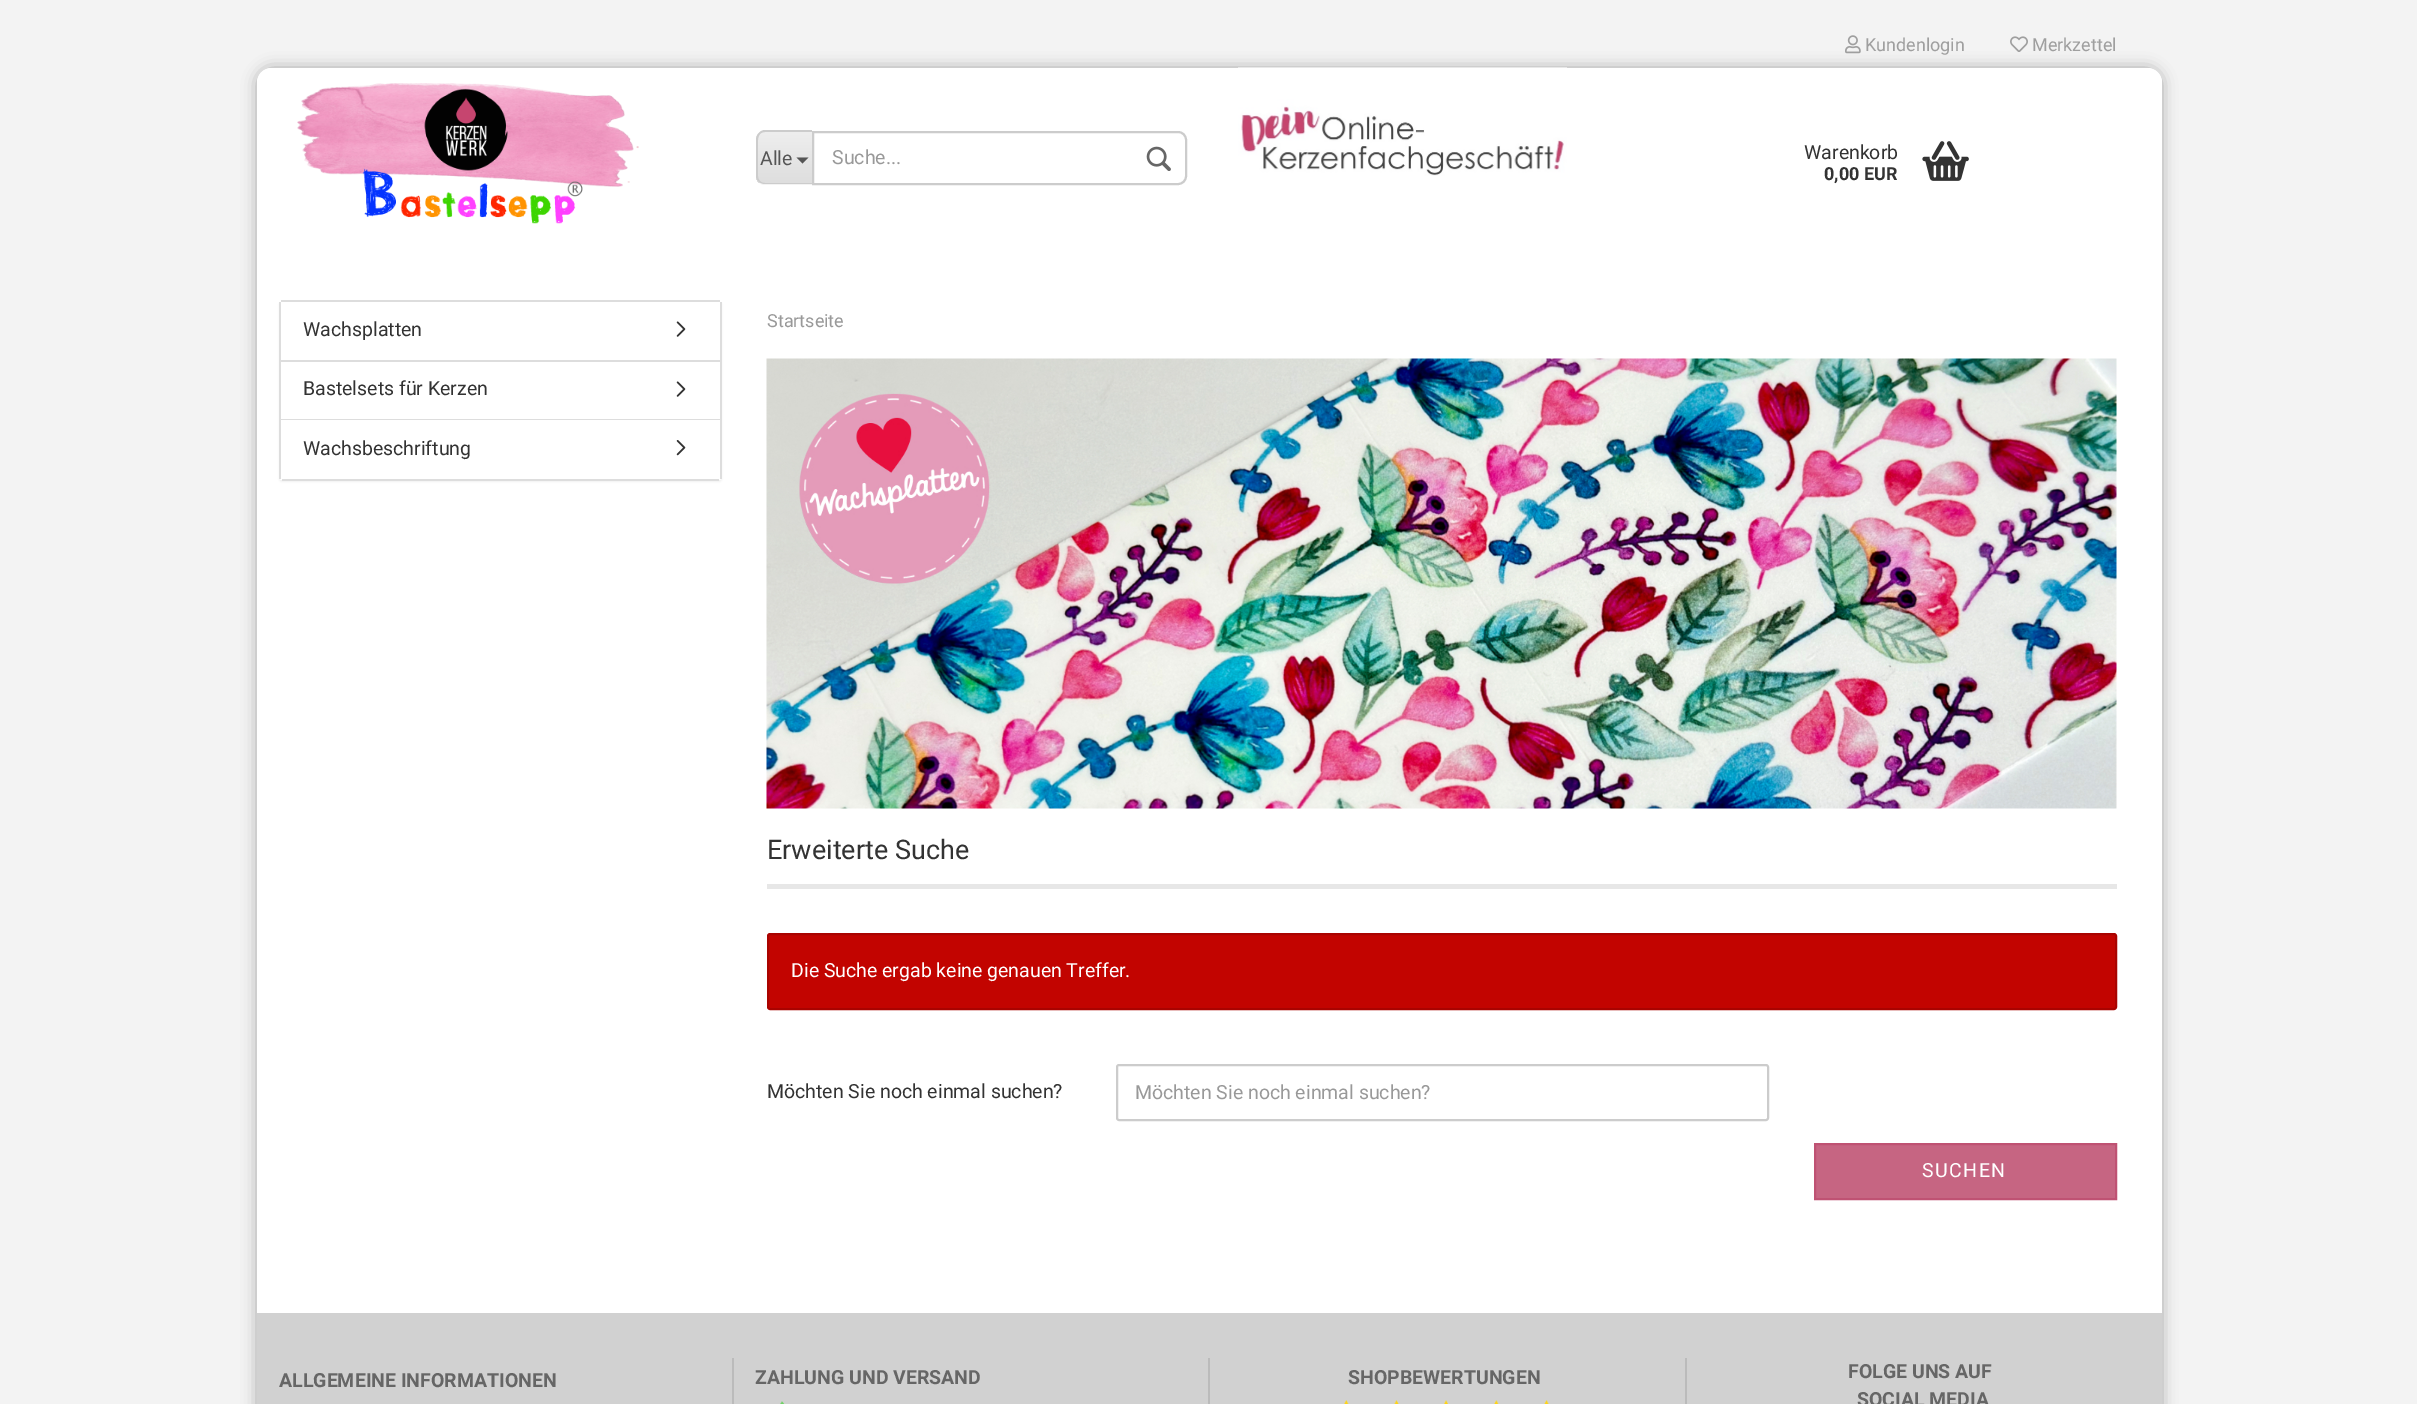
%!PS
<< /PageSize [2417 1404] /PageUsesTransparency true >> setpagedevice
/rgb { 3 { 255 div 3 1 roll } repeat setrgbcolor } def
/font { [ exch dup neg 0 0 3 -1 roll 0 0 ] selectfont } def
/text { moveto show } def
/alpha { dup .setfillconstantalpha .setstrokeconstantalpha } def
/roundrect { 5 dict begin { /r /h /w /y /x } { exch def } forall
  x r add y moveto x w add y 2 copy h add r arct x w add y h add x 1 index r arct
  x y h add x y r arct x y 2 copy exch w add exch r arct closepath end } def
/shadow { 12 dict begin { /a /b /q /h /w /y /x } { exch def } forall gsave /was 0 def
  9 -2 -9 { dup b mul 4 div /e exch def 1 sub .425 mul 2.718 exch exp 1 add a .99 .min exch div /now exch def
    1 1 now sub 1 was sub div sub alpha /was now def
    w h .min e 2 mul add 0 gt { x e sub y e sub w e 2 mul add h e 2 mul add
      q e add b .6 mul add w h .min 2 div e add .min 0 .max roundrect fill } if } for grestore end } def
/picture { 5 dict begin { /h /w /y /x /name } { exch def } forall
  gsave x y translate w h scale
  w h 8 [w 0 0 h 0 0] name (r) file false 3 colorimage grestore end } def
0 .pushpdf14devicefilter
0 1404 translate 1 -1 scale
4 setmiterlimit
243 243 243 rgb
0 0 2417 1404 rectfill
0 0 0 rgb
257 68 1905 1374 15 7.5 0.3 shadow
255 255 255 rgb
257 68 1905 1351 15 roundrect fill
272 68 moveto 1875 0 rlineto 8.5 0 15 6.5 15 15 rcurveto 0 154 rlineto 0 1.5 -1.5 3 -3 3 rcurveto -1899 0 rlineto -1.5 0 -3 -1.5 -3 -3 rcurveto 0 -154 rlineto 0 -8.5 6.5 -15 15 -15 rcurveto closepath fill
(img_01.rgb) 1845 35 16 19 picture
(img_02.rgb) 2010 36 18 16 picture
(img_03.rgb) 297 83 342 141 picture
243 243 243 rgb
765 131 moveto 47 0 rlineto 0 54 rlineto -47 0 rlineto -5 0 -9 -4 -9 -9 rcurveto 0 -36 rlineto 0 -5 4 -9 9 -9 rcurveto closepath fill
gsave
765 131 moveto 47 0 rlineto 0 54 rlineto -47 0 rlineto -5 0 -9 -4 -9 -9 rcurveto 0 -36 rlineto 0 -5 4 -9 9 -9 rcurveto closepath clip newpath
gsave 756 132 moveto 56 0 rlineto 0 51 rlineto -56 0 rlineto closepath clip newpath
<< /ShadingType 2 /ColorSpace /DeviceRGB /Coords [785 132 785 183] /Extend [true true] /Function << /FunctionType 2 /Domain [0 1] /C0 [0.933 0.933 0.933] /C1 [0.871 0.871 0.871] /N 1 >> >> shfill grestore
grestore
204 204 204 rgb
765 130 moveto 47 0 rlineto 0 54 rlineto -47 0 rlineto -5 0 -9 -4 -9 -8 rcurveto 0 -36 rlineto 0 -5 4 -10 9 -10 rcurveto closepath 765 132 moveto 47 0 rlineto 0 51 rlineto -47 0 rlineto -4 0 -7 -3 -7 -7 rcurveto 0 -36 rlineto 0 -5 3 -8 7 -8 rcurveto closepath eofill
85 85 85 rgb
796.5 157.5 moveto 12 0 rlineto -6 6 rlineto closepath fill
204 204 204 rgb
2 setlinewidth
813 132 moveto 365 0 rlineto 4.5 0 8 3.5 8 8 rcurveto 0 36 rlineto 0 4.5 -3.5 8 -8 8 rcurveto -365 0 rlineto closepath stroke
(img_04.rgb) 1146 146 25 25 picture
(img_05.rgb) 1238 67 329 109 picture
(img_06.rgb) 1922 141 47 40 picture
0 0 0 rgb
279 302 443 180 3 1 0.05 shadow
255 255 255 rgb
279 300 443 180 3 roundrect fill
221 221 221 rgb
281 300 439 2 rectfill
720 302 2 177 rectfill
279 302 2 177 rectfill
281 360 439 2 rectfill
(img_07.rgb) 676 321 10 16 picture
281 419 439 1 rectfill
(img_07.rgb) 676 381 10 16 picture
282 479 437 2 rectfill
(img_08.rgb) 676 440 10 16 picture
(img_09.rgb) 766 358 1351 451 picture
231 231 231 rgb
767 884 1350 5 rectfill
194 4 0 rgb
768 934 1348 75 2 roundrect gsave fill grestore
169 3 0 rgb
stroke
204 204 204 rgb
1117 1065 651 55 2 roundrect stroke
198 101 130 rgb
1815 1144 moveto 301 0 rlineto 0 55 rlineto -301 0 rlineto closepath gsave fill grestore
191 82 115 rgb
stroke
209 209 209 rgb
257 1313 1905 91 rectfill
187 187 187 rgb
732 1358 2 46 rectfill
1208 1358 2 46 rectfill
(img_10.rgb) 780 1401 5 3 picture
1685 1358 2 46 rectfill
(img_11.rgb) 1344 1400 205 4 picture
/Roboto-Regular 18 font
159 159 159 rgb
(Kundenlogin) 1865 51 text
(Merkzettel) 2032 51 text
/Roboto-Regular 19.5 font
85 85 85 rgb
(Alle) 760 165 text
153 153 153 rgb
(Suche...) 832 164 text
51 51 51 rgb
(Warenkorb) 1804 159 text
/Roboto-Bold 18 font
(0,00 EUR) 1824 180 text
/Roboto-Regular 19.5 font
(Wachsplatten) 303 336 text
(Bastelsets für Kerzen) 303 395 text
(Wachsbeschriftung) 303 455 text
/Roboto-Regular 18 font
153 153 153 rgb
(Startseite) 767 327 text
/Roboto-Regular 27 font
51 51 51 rgb
(Erweiterte Suche) 767 859 text
/Roboto-Regular 19.5 font
255 255 255 rgb
(Die Suche ergab keine genauen Treffer.) 791 977 text
51 51 51 rgb
(Möchten Sie noch einmal suchen?) 767 1098 text
153 153 153 rgb
(Möchten Sie noch einmal suchen?) 1135 1099 text
255 255 255 rgb
1922 1177 moveto 1.5 0 (SUCHEN) ashow
/Roboto-Bold 19.5 font
102 102 102 rgb
(ALLGEMEINE INFORMATIONEN) 279 1387 text
(ZAHLUNG UND VERSAND) 755 1384 text
(SHOPBEWERTUNGEN) 1348 1384 text
(FOLGE UNS AUF) 1848 1378 text
(SOCIAL MEDIA) 1857 1406 text
.poppdf14devicefilter showpage
